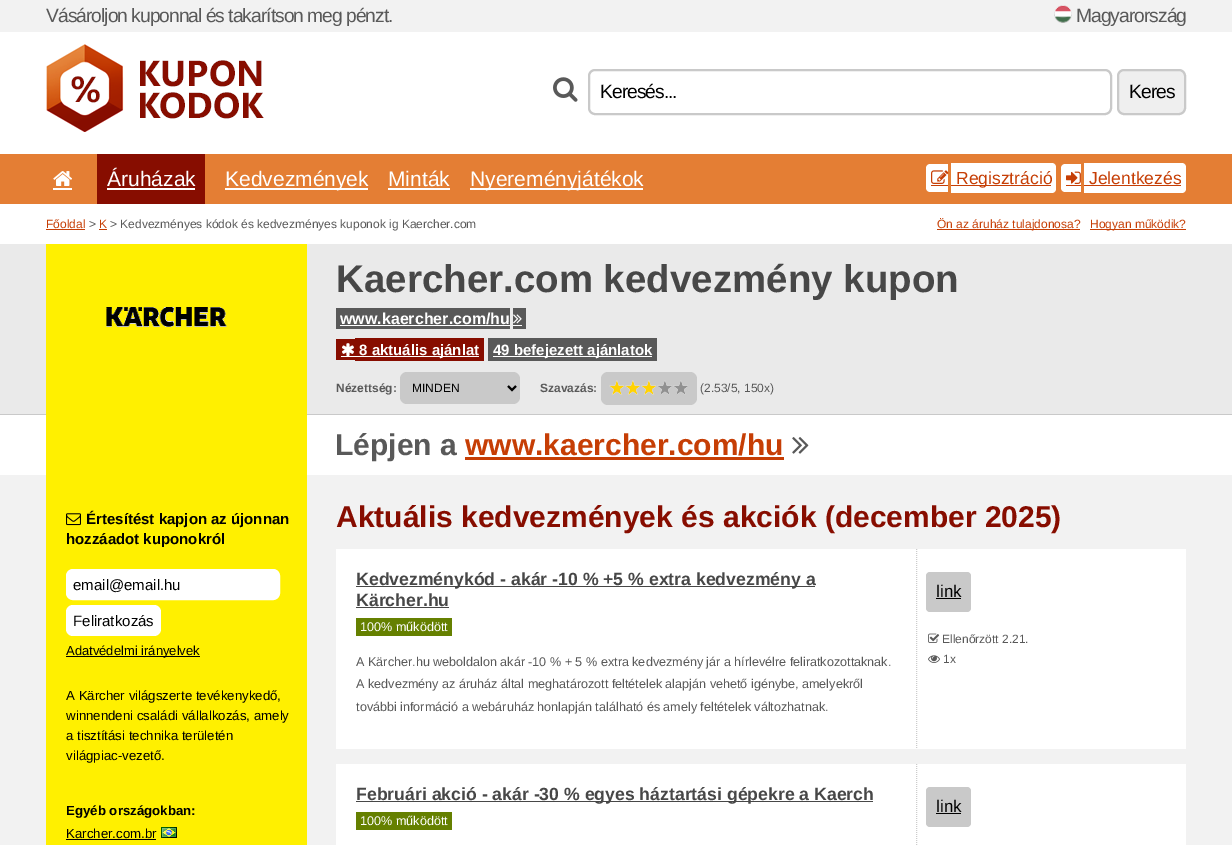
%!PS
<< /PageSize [1232 845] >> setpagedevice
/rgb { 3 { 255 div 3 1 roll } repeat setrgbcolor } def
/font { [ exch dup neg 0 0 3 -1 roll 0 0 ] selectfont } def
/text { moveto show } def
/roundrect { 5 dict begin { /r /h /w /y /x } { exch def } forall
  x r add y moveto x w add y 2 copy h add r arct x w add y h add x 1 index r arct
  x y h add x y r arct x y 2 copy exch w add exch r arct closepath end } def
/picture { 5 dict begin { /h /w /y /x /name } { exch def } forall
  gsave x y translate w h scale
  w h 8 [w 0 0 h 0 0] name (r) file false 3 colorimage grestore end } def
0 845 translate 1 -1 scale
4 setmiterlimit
242 242 242 rgb
0 0 1232 845 rectfill
(img_01.rgb) 1054 5 18 18 picture
255 255 255 rgb
0 32 1232 122 rectfill
(img_02.rgb) 46 44 218 88 picture
(img_03.rgb) 553 77 25 25 picture
201 201 201 rgb
2 setlinewidth
589 70 522 44 6 roundrect stroke
239 239 239 rgb
1118 70 67 44 6 roundrect gsave fill grestore
201 201 201 rgb
stroke
228 126 52 rgb
0 154 1232 50 rectfill
(img_04.rgb) 53 171 19 15 picture
255 255 255 rgb
53 188 19 2 rectfill
135 13 0 rgb
97 154 108 50 rectfill
255 255 255 rgb
107 188 88 2 rectfill
225 188 143 2 rectfill
388 188 62 2 rectfill
470 188 173 2 rectfill
930 164 moveto 18 0 rlineto 0 28 rlineto -18 0 rlineto -2 0 -4 -2 -4 -4 rcurveto 0 -20 rlineto 0 -2 2 -4 4 -4 rcurveto closepath fill
(img_05.rgb) 931 170 18 14 picture
951 163 moveto 101 0 rlineto 2 0 4 2 4 4 rcurveto 0 22 rlineto 0 2 -2 4 -4 4 rcurveto -101 0 rlineto closepath fill
198 62 5 rgb
931 185 17 1 rectfill
951 185 100 1 rectfill
255 255 255 rgb
1065 164 moveto 16 0 rlineto 0 28 rlineto -16 0 rlineto -2 0 -4 -2 -4 -4 rcurveto 0 -20 rlineto 0 -2 2 -4 4 -4 rcurveto closepath fill
(img_06.rgb) 1066 171 15 13 picture
1084 163 moveto 98 0 rlineto 2 0 4 2 4 4 rcurveto 0 22 rlineto 0 2 -2 4 -4 4 rcurveto -98 0 rlineto closepath fill
198 62 5 rgb
1066 185 15 1 rectfill
1084 185 97 1 rectfill
255 255 255 rgb
0 204 1232 40 rectfill
198 62 5 rgb
46 229 39 1 rectfill
99 229 8 1 rectfill
937 229 143 1 rectfill
1090 229 96 1 rectfill
234 234 234 rgb
0 244 1232 170 rectfill
201 201 201 rgb
0 414 1232 1 rectfill
255 255 255 rgb
0 415 1232 60 rectfill
255 240 0 rgb
46 244 261 601 rectfill
(img_07.rgb) 106 307 121 20 picture
89 89 89 rgb
336 308 174 21 rectfill
513 308 13 21 rectfill
255 255 255 rgb
340 325 170 1 rectfill
513 325 9 1 rectfill
(img_08.rgb) 513 314 9 10 picture
135 13 0 rgb
336 339 19 21 rectfill
(img_09.rgb) 342 343 12 13 picture
355 338 129 23 rectfill
255 255 255 rgb
341 356 138 1 rectfill
89 89 89 rgb
488 338 169 23 rectfill
255 255 255 rgb
493 356 159 1 rectfill
201 201 201 rgb
400 372 120 32 7 roundrect fill
0 0 0 rgb
508 386 moveto 4 4 rlineto 4 -4 rlineto stroke
201 201 201 rgb
601 372 96 33 7 roundrect fill
(img_10.rgb) 609 380 15 15 picture
(img_10.rgb) 625 380 15 15 picture
(img_10.rgb) 641 380 15 15 picture
(img_11.rgb) 657 380 15 15 picture
(img_11.rgb) 673 380 15 15 picture
198 62 5 rgb
465 457 319 3 rectfill
(img_12.rgb) 792 437 17 17 picture
(img_13.rgb) 66 513 15 13 picture
255 255 255 rgb
66.5 569.5 213 30 6.5 roundrect gsave fill grestore
1 setlinewidth
stroke
66 605 95 31 7 roundrect fill
0 0 0 rgb
66 656 134 1 rectfill
66 839 90 1 rectfill
(img_14.rgb) 161 827 16 11 picture
255 255 255 rgb
336 549 850 200 rectfill
204 204 204 rgb
[1 1] 0 setdash
916.5 549 moveto 0 200 rlineto stroke
71 71 71 rgb
356 586 459 1 rectfill
356 607 93 1 rectfill
101 128 0 rgb
356 618 96 18 rectfill
201 201 201 rgb
926 572 45 40 4 roundrect fill
0 0 0 rgb
936 598 25 1 rectfill
(img_15.rgb) 928 633 12 10 picture
(img_16.rgb) 928 655 12 8 picture
255 255 255 rgb
336 764 850 81 rectfill
204 204 204 rgb
916.5 764 moveto 0 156 rlineto stroke
71 71 71 rgb
356 801 517 1 rectfill
101 128 0 rgb
356 812 96 18 rectfill
201 201 201 rgb
926 787 45 40 4 roundrect fill
0 0 0 rgb
936 813 25 1 rectfill
/LiberationSans-Regular 19.25 font
89 89 89 rgb
46 22 moveto -1 0 (Vásároljon kuponnal és takarítson meg pénzt.) ashow
1076 22 moveto -1 0 (Magyarország) ashow
0 0 0 rgb
600 98 moveto -1 0 (Keresés...) ashow
1129 98 moveto -1 0 (Keres) ashow
/LiberationSans-Regular 21 font
255 255 255 rgb
(Áruházak) 107 186 text
(Kedvezmények) 225 186 text
(Minták) 388 186 text
(Nyereményjátékok) 470 186 text
/LiberationSans-Regular 17.5 font
198 62 5 rgb
(Regisztráció) 956 184 text
(Jelentkezés) 1089 184 text
/LiberationSans-Regular 12 font
(Főoldal) 46 228 text
89 89 89 rgb
(>) 89 228 text
198 62 5 rgb
(K) 99 228 text
89 89 89 rgb
(> Kedvezményes kódok és kedvezményes kuponok ig Kaercher.com) 110 228 text
198 62 5 rgb
(Ön az áruház tulajdonosa?) 937 228 text
(Hogyan működik?) 1090 228 text
/LiberationSans-Bold 38.5 font
71 71 71 rgb
(Kaercher.com kedvezmény kupon) 336 292 text
/LiberationSans-Bold 16 font
255 255 255 rgb
(www.kaercher.com/hu) 340 324 text
/LiberationSans-Bold 15 font
(8 aktuális ajánlat) 359 355 text
(49 befejezett ajánlatok) 493 355 text
/LiberationSans-Bold 12 font
89 89 89 rgb
(Nézettség:) 336 392 text
/LiberationSans-Regular 12 font
0 0 0 rgb
(MINDEN) 412 392 text
/LiberationSans-Bold 12 font
89 89 89 rgb
(Szavazás:) 540 392 text
/LiberationSans-Regular 12 font
(\(2.53/5, 150x\)) 700 392 text
/LiberationSans-Bold 30 font
(Lépjen a) 335 455 text
198 62 5 rgb
(www.kaercher.com/hu) 465 455 text
/LiberationSans-Bold 15 font
0 0 0 rgb
(Értesítést kapjon az újonnan) 86 524 text
(hozzáadot kuponokról) 66 544 text
/LiberationSans-Regular 15 font
(email@email.hu) 73 590 text
(Feliratkozás) 73 626 text
/LiberationSans-Regular 13 font
(Adatvédelmi irányelvek) 66 655 text
/LiberationSans-Regular 13.25 font
(A Kärcher világszerte tevékenykedő,) 66 700 text
(winnendeni családi vállalkozás, amely) 66 720 text
(a tisztítási technika területén) 66 740 text
(világpiac-vezető.) 66 760 text
/LiberationSans-Bold 13.25 font
(Egyéb országokban:) 66 815 text
/LiberationSans-Regular 13.25 font
(Karcher.com.br) 66 838 text
/LiberationSans-Bold 30 font
135 13 0 rgb
(Aktuális kedvezmények és akciók \(december 2025\)) 336 527 text
/LiberationSans-Bold 17.65 font
71 71 71 rgb
(Kedvezménykód - akár -10 % +5 % extra kedvezmény a) 356 585 text
(Kärcher.hu) 356 606 text
/LiberationSans-Regular 12.6 font
255 255 255 rgb
(100% működött) 360 631 text
89 89 89 rgb
(A Kärcher.hu weboldalon akár -10 % + 5 % extra kedvezmény jár a hírlevélre feliratkozottaknak.) 356 666 text
(A kedvezmény az áruház által meghatározott feltételek alapján vehető igénybe, amelyekről) 356 688 text
(további információ a webáruház honlapján található és amely feltételek változhatnak.) 356 711 text
/LiberationSans-Regular 17 font
0 0 0 rgb
(link) 936 597 text
/LiberationSans-Regular 12 font
89 89 89 rgb
(Ellenőrzött 2.21.) 942 643 text
(1x) 943 663 text
/LiberationSans-Bold 17.65 font
71 71 71 rgb
(Februári akció - akár -30 % egyes háztartási gépekre a Kaerch) 356 800 text
/LiberationSans-Regular 12.6 font
255 255 255 rgb
(100% működött) 360 825 text
/LiberationSans-Regular 17 font
0 0 0 rgb
(link) 936 812 text
showpage
